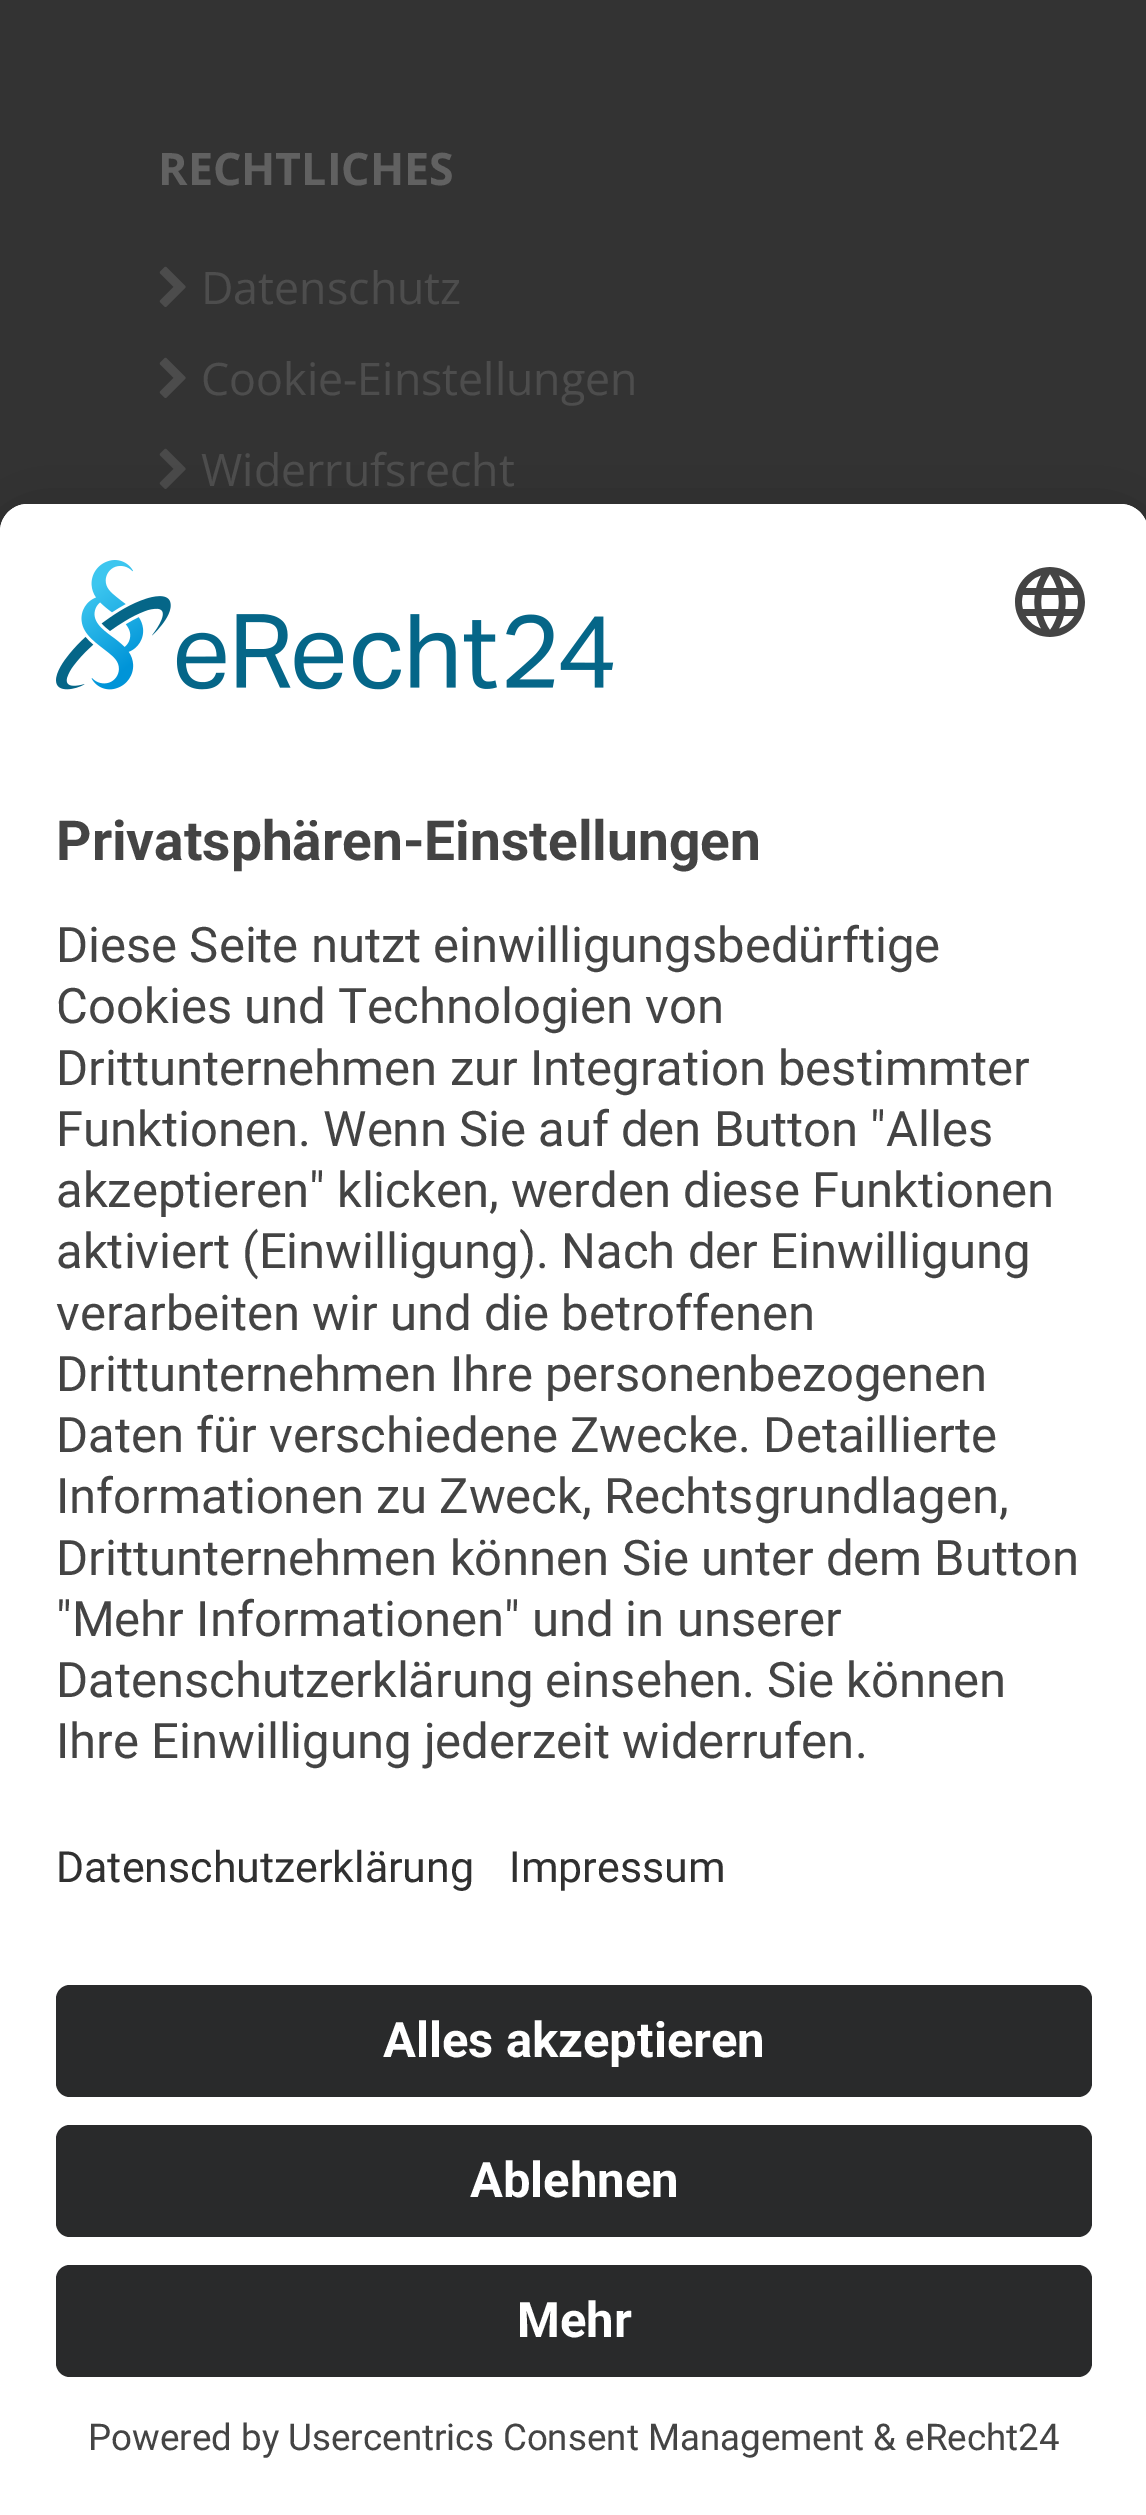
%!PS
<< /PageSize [1146 2515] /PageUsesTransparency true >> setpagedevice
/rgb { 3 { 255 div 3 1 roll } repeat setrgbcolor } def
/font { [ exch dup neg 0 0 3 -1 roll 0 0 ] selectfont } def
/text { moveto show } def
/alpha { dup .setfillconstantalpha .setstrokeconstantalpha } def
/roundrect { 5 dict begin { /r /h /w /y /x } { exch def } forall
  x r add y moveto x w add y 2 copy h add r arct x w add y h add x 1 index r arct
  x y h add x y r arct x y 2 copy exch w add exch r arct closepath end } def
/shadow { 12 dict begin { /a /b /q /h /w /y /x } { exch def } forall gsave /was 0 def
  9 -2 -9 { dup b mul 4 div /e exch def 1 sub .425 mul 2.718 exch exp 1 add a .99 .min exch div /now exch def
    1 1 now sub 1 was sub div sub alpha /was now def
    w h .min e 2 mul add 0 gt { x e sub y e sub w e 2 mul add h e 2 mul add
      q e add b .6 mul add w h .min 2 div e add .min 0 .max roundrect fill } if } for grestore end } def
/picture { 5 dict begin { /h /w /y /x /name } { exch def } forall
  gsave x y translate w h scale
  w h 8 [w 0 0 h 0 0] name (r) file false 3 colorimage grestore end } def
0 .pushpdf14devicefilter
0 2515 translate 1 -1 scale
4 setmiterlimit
51 51 51 rgb
0 0 1146 2515 rectfill
(img_01.rgb) 159 266 27 41 picture
(img_01.rgb) 159 357 27 41 picture
(img_01.rgb) 159 448 27 41 picture
0 0 0 rgb
0 522 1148 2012 28 45.5 0.22 shadow
255 255 255 rgb
28 504 moveto 1092 0 rlineto 15.5 0 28 12.5 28 28 rcurveto 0 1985 rlineto -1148 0 rlineto 0 -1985 rlineto 0 -15.5 12.5 -28 28 -28 rcurveto closepath fill
28 504 moveto 1092 0 rlineto 15.5 0 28 12.5 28 28 rcurveto 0 1411 rlineto -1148 0 rlineto 0 -1411 rlineto 0 -15.5 12.5 -28 28 -28 rcurveto closepath fill
(img_02.rgb) 56 560 558 130 picture
(img_03.rgb) 1015 567 70 70 picture
41 42 43 rgb
56 1985 1036 112 14 roundrect fill
56 2125 1036 112 14 roundrect fill
56 2265 1036 112 14 roundrect fill
/OpenSans-Bold 44.75 font
97 97 97 rgb
(RECHTLICHES) 158 185 text
/OpenSans-Regular 44.75 font
77 77 77 rgb
(Datenschutz) 201 304 text
(Cookie-Einstellungen) 201 395 text
(Widerrufsrecht) 201 486 text
/Roboto-Bold 55.1 font
68 68 68 rgb
(Privatsphären-Einstellungen) 56 860 text
/Roboto-Regular 49 font
(Diese Seite nutzt einwilligungsbedürftige) 56 962 text
(Cookies und Technologien von) 56 1023 text
(Drittunternehmen zur Integration bestimmter) 56 1085 text
(Funktionen. Wenn Sie auf den Button "Alles) 56 1146 text
(akzeptieren" klicken, werden diese Funktionen) 56 1207 text
(aktiviert \(Einwilligung\). Nach der Einwilligung) 56 1268 text
(verarbeiten wir und die betroffenen) 56 1330 text
(Drittunternehmen Ihre personenbezogenen) 56 1391 text
(Daten für verschiedene Zwecke. Detaillierte) 56 1452 text
(Informationen zu Zweck, Rechtsgrundlagen,) 56 1513 text
(Drittunternehmen können Sie unter dem Button) 56 1575 text
("Mehr Informationen" und in unserer) 56 1636 text
(Datenschutzerklärung einsehen. Sie können) 56 1697 text
(Ihre Einwilligung jederzeit widerrufen.) 56 1758 text
/Roboto-Regular 42.9 font
48 48 48 rgb
(Datenschutzerklärung) 56 1882 text
(Impressum) 509 1882 text
/Roboto-Bold 49 font
255 255 255 rgb
(Alles akzeptieren) 383 2057 text
(Ablehnen) 470 2197 text
(Mehr) 517 2337 text
/Roboto-Regular 36.75 font
68 68 68 rgb
(Powered by Usercentrics Consent Management & eRecht24) 88 2450 text
.poppdf14devicefilter showpage
